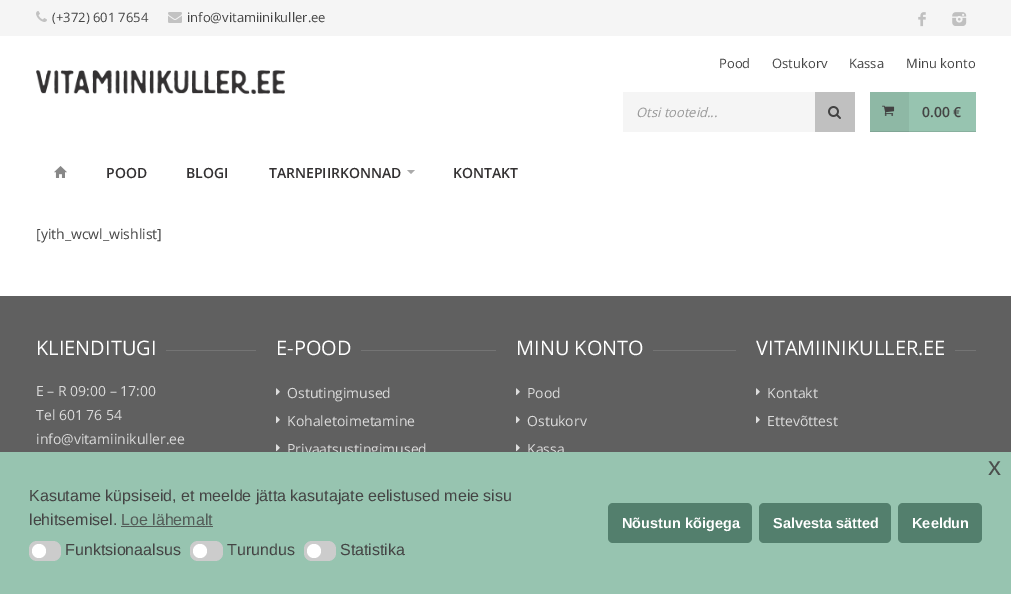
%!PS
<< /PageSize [1011 594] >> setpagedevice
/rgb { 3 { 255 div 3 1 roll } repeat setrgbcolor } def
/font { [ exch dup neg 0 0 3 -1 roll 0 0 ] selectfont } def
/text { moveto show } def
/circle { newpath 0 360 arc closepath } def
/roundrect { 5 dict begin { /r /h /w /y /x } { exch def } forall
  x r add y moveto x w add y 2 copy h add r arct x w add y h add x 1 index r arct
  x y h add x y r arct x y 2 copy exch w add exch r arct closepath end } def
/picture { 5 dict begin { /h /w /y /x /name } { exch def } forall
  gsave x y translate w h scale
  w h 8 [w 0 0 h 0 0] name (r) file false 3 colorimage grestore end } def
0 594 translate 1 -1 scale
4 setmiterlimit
255 255 255 rgb
0 0 1011 594 rectfill
245 245 245 rgb
0 0 1011 36 rectfill
(img_01.rgb) 36 11 11 11 picture
(img_02.rgb) 168 12 14 11 picture
(img_03.rgb) 918 12 8 15 picture
(img_04.rgb) 952 12 15 14 picture
(img_05.rgb) 36 70 249 24 picture
623 92 192 40 rectfill
192 192 192 rgb
815 92 40 40 rectfill
(img_06.rgb) 828 106 13 13 picture
151 196 176 rgb
909 92 67 39 rectfill
142 184 165 rgb
870 92 39 39 rectfill
136 176 158 rgb
909 131 67 1 rectfill
128 165 149 rgb
870 131 39 1 rectfill
(img_07.rgb) 882 105 13 11 picture
(img_08.rgb) 54 166 13 12 picture
170 170 170 rgb
407 170 moveto 8 0 rlineto -4 4 rlineto closepath fill
96 96 96 rgb
0 296 1011 156 rectfill
116 116 116 rgb
166 350 90 1 rectfill
361 350 135 1 rectfill
(img_09.rgb) 276 388 4 8 picture
(img_09.rgb) 276 416 4 8 picture
(img_09.rgb) 276 444 4 8 picture
653 350 83 1 rectfill
(img_09.rgb) 516 388 4 8 picture
(img_09.rgb) 516 416 4 8 picture
(img_09.rgb) 516 444 4 8 picture
955 350 21 1 rectfill
(img_09.rgb) 756 388 4 8 picture
(img_09.rgb) 756 416 4 8 picture
/OpenSans-Regular 13 font
68 68 68 rgb
(\(+372\) 601 7654) 52 22 text
(info@vitamiinikuller.ee) 187 22 text
(Pood) 719 68 text
(Ostukorv) 772 68 text
(Kassa) 849 68 text
(Minu konto) 906 68 text
/OpenSans-Italic 13 font
153 153 153 rgb
(Otsi tooteid...) 636 117 text
/OpenSans-SemiBold 14 font
68 68 68 rgb
(0.00 €) 922 117 text
51 49 50 rgb
(POOD) 106 178 text
(BLOGI) 186 178 text
(TARNEPIIRKONNAD) 269 178 text
(KONTAKT) 453 178 text
/OpenSans-Regular 14 font
68 68 68 rgb
([yith_wcwl_wishlist]) 36 239 text
/OpenSans-Regular 20 font
255 255 255 rgb
(KLIENDITUGI) 36 355 text
/OpenSans-Regular 14 font
219 219 219 rgb
(E – R 09:00 – 17:00) 36 396 text
(Tel 601 76 54) 36 420 text
(info@vitamiinikuller.ee) 36 444 text
/OpenSans-Regular 20 font
255 255 255 rgb
(E-POOD) 276 355 text
/OpenSans-Regular 14 font
219 219 219 rgb
(Ostutingimused) 287 398 text
(Kohaletoimetamine) 287 426 text
(Privaatsustingimused) 287 454 text
/OpenSans-Regular 20 font
255 255 255 rgb
(MINU KONTO) 516 355 text
/OpenSans-Regular 14 font
219 219 219 rgb
(Pood) 527 398 text
(Ostukorv) 527 426 text
(Kassa) 527 454 text
/OpenSans-Regular 20 font
255 255 255 rgb
(VITAMIINIKULLER.EE) 756 355 text
/OpenSans-Regular 14 font
219 219 219 rgb
(Kontakt) 767 398 text
(Ettevõttest) 767 426 text
151 196 176 rgb
0 452 1011 142 rectfill
/LiberationSans-Regular 26 font
75 79 77 rgb
(x) 988 475 text
/LiberationSans-Regular 16 font
68 68 68 rgb
(Kasutame küpsiseid, et meelde jätta kasutajate eelistused meie sisu) 29 501 text
(lehitsemisel.) 29 525 text
83 92 88 rgb
(Loe lähemalt) 121 525 text
121 526 92 1 rectfill
204 204 204 rgb
29 541 32 20 8 roundrect fill
255 255 255 rgb
39 551 7 circle fill
68 68 68 rgb
(Funktsionaalsus) 65 555 text
204 204 204 rgb
190 541 33 20 8 roundrect fill
255 255 255 rgb
200 551 7 circle fill
68 68 68 rgb
(Turundus) 227 555 text
204 204 204 rgb
304 541 32 20 8 roundrect fill
255 255 255 rgb
314 551 7 circle fill
68 68 68 rgb
(Statistika) 340 555 text
83 127 109 rgb
608 503 144 40 5 roundrect fill
/LiberationSans-Bold 14.5 font
255 255 255 rgb
(Nõustun kõigega) 622 528 text
83 127 109 rgb
759 503 132 40 5 roundrect fill
255 255 255 rgb
(Salvesta sätted) 773 528 text
83 127 109 rgb
898 503 84 40 5 roundrect fill
255 255 255 rgb
(Keeldun) 912 528 text
showpage
